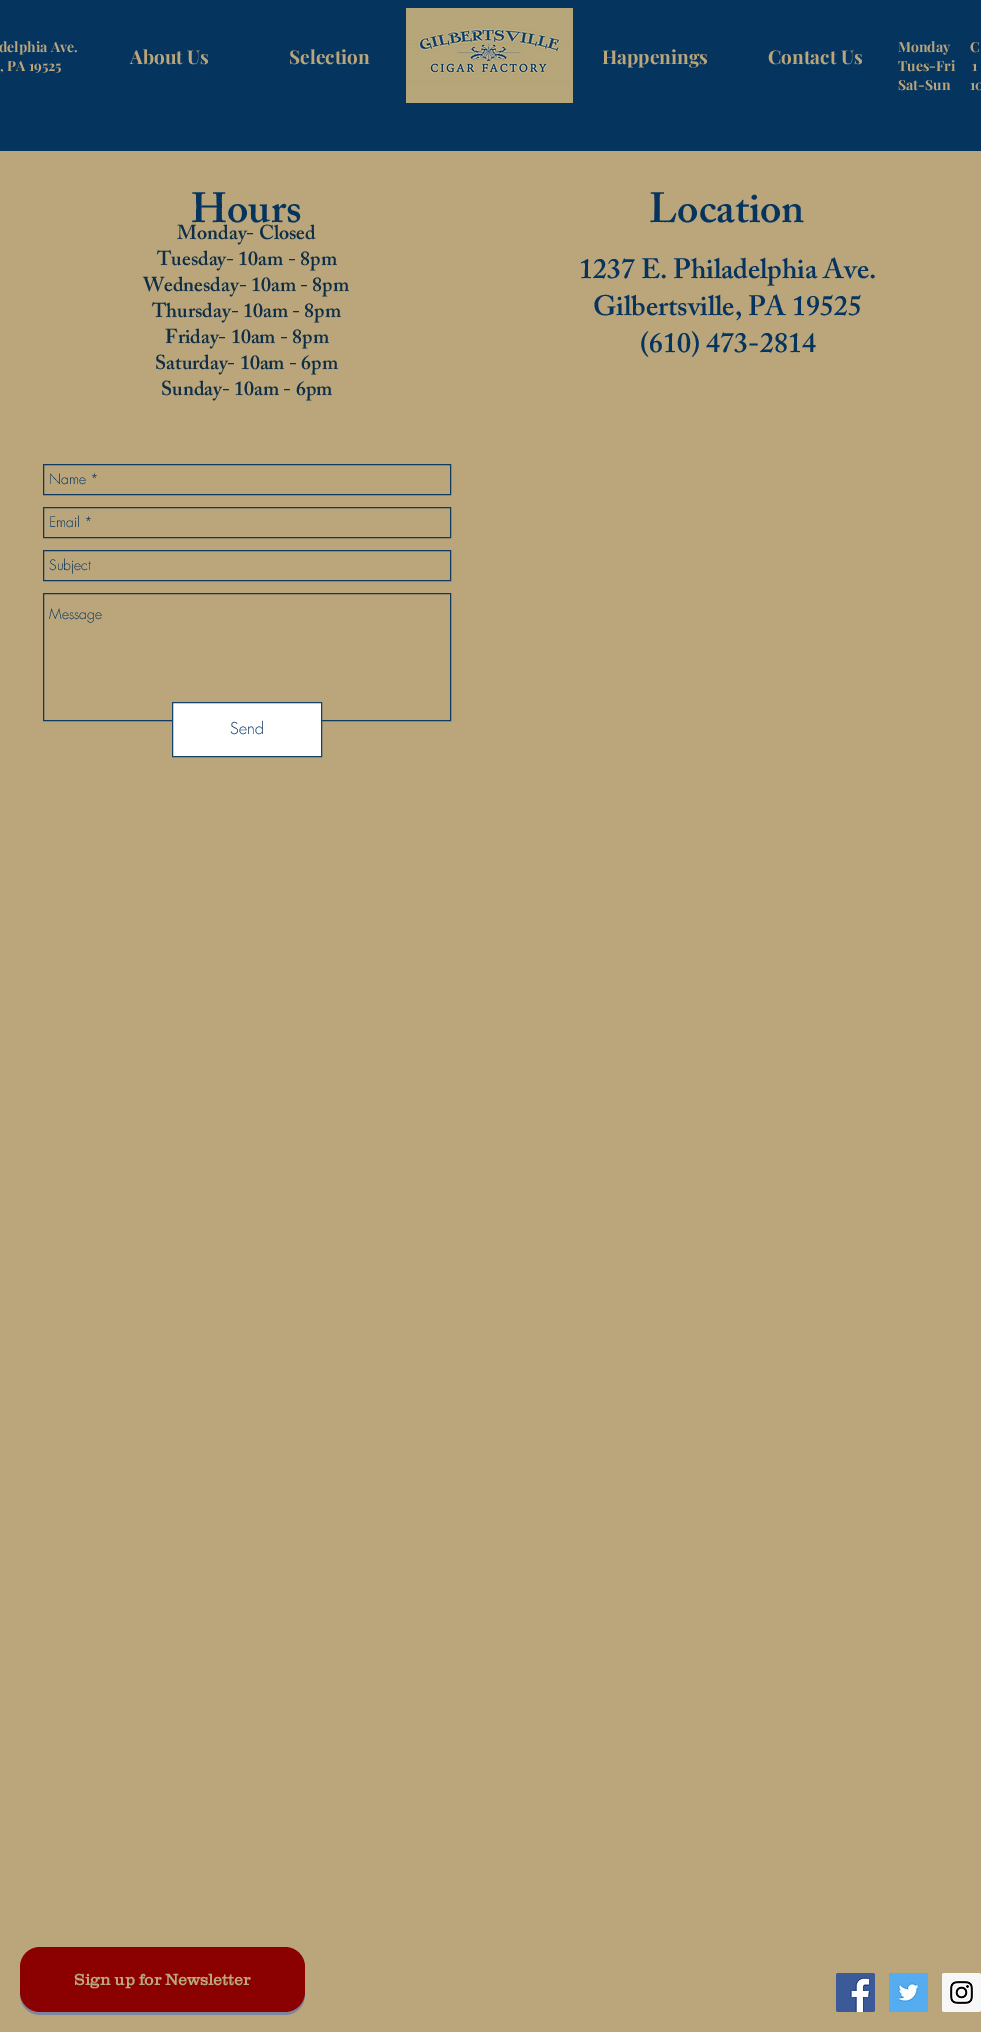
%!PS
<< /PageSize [981 2032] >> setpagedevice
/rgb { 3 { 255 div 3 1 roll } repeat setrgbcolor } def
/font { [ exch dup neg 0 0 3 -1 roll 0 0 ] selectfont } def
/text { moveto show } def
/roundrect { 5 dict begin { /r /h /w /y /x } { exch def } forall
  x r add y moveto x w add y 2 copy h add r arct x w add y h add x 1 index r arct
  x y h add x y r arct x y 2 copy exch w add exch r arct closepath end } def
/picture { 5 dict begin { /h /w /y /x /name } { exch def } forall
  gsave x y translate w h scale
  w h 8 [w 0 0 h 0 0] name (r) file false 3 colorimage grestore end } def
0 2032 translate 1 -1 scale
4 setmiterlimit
186 166 122 rgb
0 0 981 2032 rectfill
5 52 95 rgb
0 0 981 151 rectfill
(img_01.rgb) 406 8 167 95 picture
16 59 97 rgb
43.5 464.5 407 30 rectstroke
43.5 507.5 407 30 rectstroke
43.5 550.5 407 30 rectstroke
43.5 593.5 407 127 rectstroke
255 255 255 rgb
172.5 702.5 moveto 149 0 rlineto 0 54 rlineto -149 0 rlineto closepath gsave fill grestore
20 64 105 rgb
stroke
126 133 159 rgb
20 1992 moveto 0 3 rlineto 0 11 9 20 20 20 rcurveto 245 0 rlineto 11 0 20 -9 20 -20 rcurveto 0 -3 rlineto 0 11 -9 20 -20 20 rcurveto -245 0 rlineto -11 0 -20 -9 -20 -20 rcurveto closepath fill
139 0 0 rgb
20 1947 285 65 20 roundrect fill
(img_02.rgb) 836 1973 39 39 picture
(img_03.rgb) 889 1973 39 39 picture
(img_04.rgb) 942 1973 39 39 picture
/PlayfairDisplay-Bold 14 font
186 166 122 rgb
(delphia Ave.) -1 52 text
(, PA 19525) 0 71 text
/PlayfairDisplay-Bold 19 font
(About Us) 130 64 text
(Selection) 289 64 text
(Happenings) 602 64 text
(Contact Us) 768 64 text
/PlayfairDisplay-Bold 14 font
(Monday      C) 898 52 text
(Tues-Fri     1) 898 71 text
(Sat-Sun      10) 898 90 text
/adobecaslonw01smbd-SemiBold 42 font
5 52 95 rgb
(Hours) 191 222 text
(Location) 649 222 text
/adobecaslonw01smbd-SemiBold 20 font
14 46 71 rgb
(Monday- Closed) 177 239 text
(Tuesday- 10am - 8pm) 157 265 text
(Wednesday- 10am - 8pm) 143 291 text
(Thursday- 10am - 8pm) 152 317 text
(Friday- 10am - 8pm) 165 343 text
(Saturday- 10am - 6pm) 155 369 text
(Sunday- 10am - 6pm) 161 395 text
/adobecaslonw01smbd-SemiBold 28 font
5 52 95 rgb
(1237 E. Philadelphia Ave.) 579 278 text
(Gilbertsville, PA 19525) 593 315 text
(\(610\) 473-2814) 640 352 text
/futura-Light 14 font
(Name *) 49 484 text
(Email *) 49 527 text
(Subject) 49 570 text
(Message) 49 619 text
/futura-Light 16 font
(Send) 230 734 text
/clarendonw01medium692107-Bold 16 font
186 166 122 rgb
(Sign up for Newsletter) 74 1985 text
showpage
